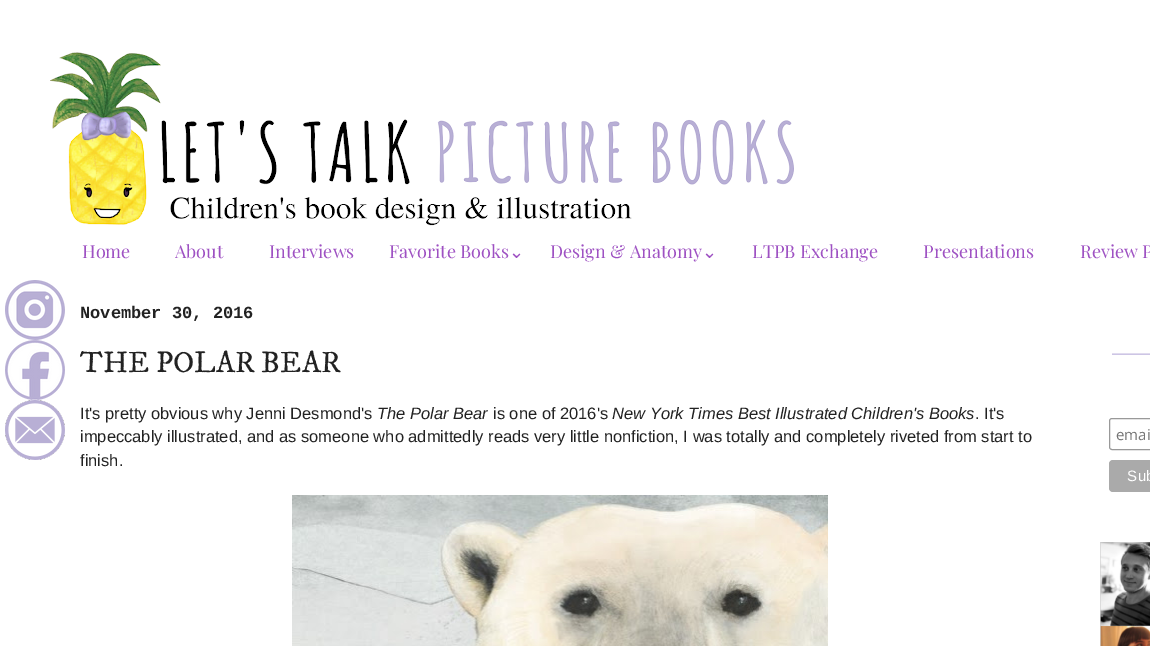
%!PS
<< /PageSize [1150 646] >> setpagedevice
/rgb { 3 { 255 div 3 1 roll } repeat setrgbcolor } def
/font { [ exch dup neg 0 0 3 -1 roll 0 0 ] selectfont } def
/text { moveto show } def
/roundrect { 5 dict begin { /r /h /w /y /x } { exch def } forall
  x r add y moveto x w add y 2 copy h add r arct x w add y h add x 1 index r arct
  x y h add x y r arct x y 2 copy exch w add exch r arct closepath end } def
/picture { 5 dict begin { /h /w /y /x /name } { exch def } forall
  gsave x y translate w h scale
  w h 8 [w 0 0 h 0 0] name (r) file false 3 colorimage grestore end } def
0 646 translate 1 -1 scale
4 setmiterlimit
255 255 255 rgb
0 0 1150 646 rectfill
(img_01.rgb) 50 52 744 174 picture
(img_02.rgb) 292 495 536 151 picture
(img_03.rgb) 5 280 60 60 picture
(img_04.rgb) 5 340 60 60 picture
(img_05.rgb) 5 400 60 60 picture
(img_06.rgb) 1112 353 38 2 picture
153 153 153 rgb
1109.5 418.5 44 31 2.5 roundrect stroke
170 170 170 rgb
1109 460 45 32 4 roundrect fill
(img_07.rgb) 1100 542 50 104 picture
/PlayfairDisplay-Regular 18 font
158 81 195 rgb
(Home) 82 258 text
(About) 175 258 text
(Interviews) 269 258 text
(Favorite Books) 389 258 text
/DejaVuSans-Regular 18 font
(⌄) 509 258 text
/PlayfairDisplay-Regular 18 font
(Design & Anatomy) 550 258 text
/DejaVuSans-Regular 18 font
(⌄) 702 258 text
/PlayfairDisplay-Regular 18 font
(LTPB Exchange) 752 258 text
(Presentations) 923 258 text
(Review P) 1080 258 text
/LiberationMono-Bold 17 font
34 34 34 rgb
(November 30, 2016) 80 318 text
/IMFELLDWPica-Regular 30 font
(THE POLAR BEAR) 80 372 text
/LiberationSans-Regular 16.5 font
(It's pretty obvious why Jenni Desmond's) 80 419 text
/LiberationSans-Italic 16.5 font
(The Polar Bear) 377 419 text
/LiberationSans-Regular 16.5 font
(is one of 2016's) 493 419 text
/LiberationSans-Italic 16.5 font
(New York Times Best Illustrated Children's Books) 612 419 text
/LiberationSans-Regular 16.5 font
(. It's) 975 419 text
(impeccably illustrated, and as someone who admittedly reads very little nonfiction, I was totally and completely riveted from start to) 80 442 text
(finish.) 80 466 text
/OpenSans-Regular 15 font
117 117 117 rgb
(emai) 1116 440 text
/LiberationSans-Regular 15 font
255 255 255 rgb
1127 481 moveto 0.5 0 (Sub) ashow
showpage
